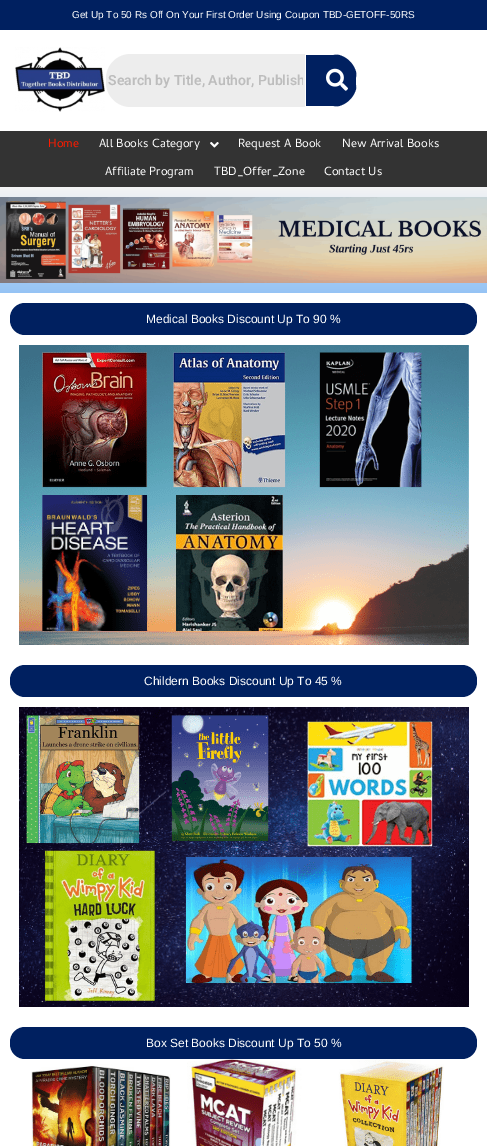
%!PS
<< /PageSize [487 1146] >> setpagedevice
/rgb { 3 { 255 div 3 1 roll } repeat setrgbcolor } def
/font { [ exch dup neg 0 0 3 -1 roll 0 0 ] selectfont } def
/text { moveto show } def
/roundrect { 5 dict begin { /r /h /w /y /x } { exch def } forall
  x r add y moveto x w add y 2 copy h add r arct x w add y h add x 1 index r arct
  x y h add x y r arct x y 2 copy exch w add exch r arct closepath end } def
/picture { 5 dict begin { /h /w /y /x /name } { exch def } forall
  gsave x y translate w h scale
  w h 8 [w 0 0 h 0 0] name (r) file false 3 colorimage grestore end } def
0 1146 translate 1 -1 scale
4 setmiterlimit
255 255 255 rgb
0 0 487 1146 rectfill
0 32 96 rgb
0 0 487 30 rectfill
(img_01.rgb) 15 47 90 65 picture
237 237 237 rgb
131 54 moveto 174 0 rlineto 0 53 rlineto -174 0 rlineto -14 0 -25 -11 -25 -25 rcurveto 0 -3 rlineto 0 -14 11 -25 25 -25 rcurveto closepath fill
0 32 96 rgb
305 54 moveto 27 0 rlineto 14 0 25 11 25 25 rcurveto 0 3 rlineto 0 14 -11 25 -25 25 rcurveto -27 0 rlineto closepath fill
255 255 255 rgb
305 54 moveto 0 53 rlineto 27 0 rlineto 7 -1 rlineto -33 0 rlineto 0 -51 rlineto 33 0 rlineto -7 -1 rlineto closepath 357 79 moveto -1 -7 rlineto 0 17 rlineto 1 -3 1 -7 1 -10 rcurveto closepath eofill
(img_02.rgb) 326 68 22 23 picture
51 51 51 rgb
0 131 487 56 rectfill
(img_03.rgb) 210 142 9 6 picture
gsave 0 187 moveto 487 0 rlineto 0 106 rlineto -487 0 rlineto closepath clip newpath
<< /ShadingType 2 /ColorSpace /DeviceRGB /Coords [244 187 244 293] /Extend [true true] /Function << /FunctionType 2 /Domain [0 1] /C0 [0.957 0.957 0.957] /C1 [0.584 0.765 0.957] /N 1 >> >> shfill grestore
(img_04.rgb) 0 197 487 86 picture
0 32 96 rgb
10 303 467 32 15 roundrect fill
(img_05.rgb) 19 345 450 300 picture
10 665 467 32 15 roundrect fill
(img_06.rgb) 19 707 450 300 picture
10 1027 467 32 15 roundrect fill
(img_07.rgb) 31 1059 413 87 picture
/LiberationSans-Regular 10 font
255 255 255 rgb
(Get Up To 50 Rs Off On Your First Order Using Coupon TBD-GETOFF-50RS) 72 18 text
gsave
108 72 195 16 rectclip
/Roboto-SemiBold 14 font
189 189 189 rgb
(Search by Title, Author, Publish) 108 85 text
grestore
/Cambay-Regular 12 font
255 27 0 rgb
(Home) 48 147 text
255 255 255 rgb
(All Books Category) 99 147 text
(Request A Book) 238 147 text
(New Arrival Books) 342 147 text
(Affiliate Program) 105 175 text
(TBD_Offer_Zone) 214 175 text
(Contact Us) 324 175 text
/LiberationSans-Regular 12 font
(Medical Books Discount Up To 90 %) 146 323 text
(Childern Books Discount Up To 45 %) 144 685 text
(Box Set Books Discount Up To 50 %) 146 1047 text
showpage
